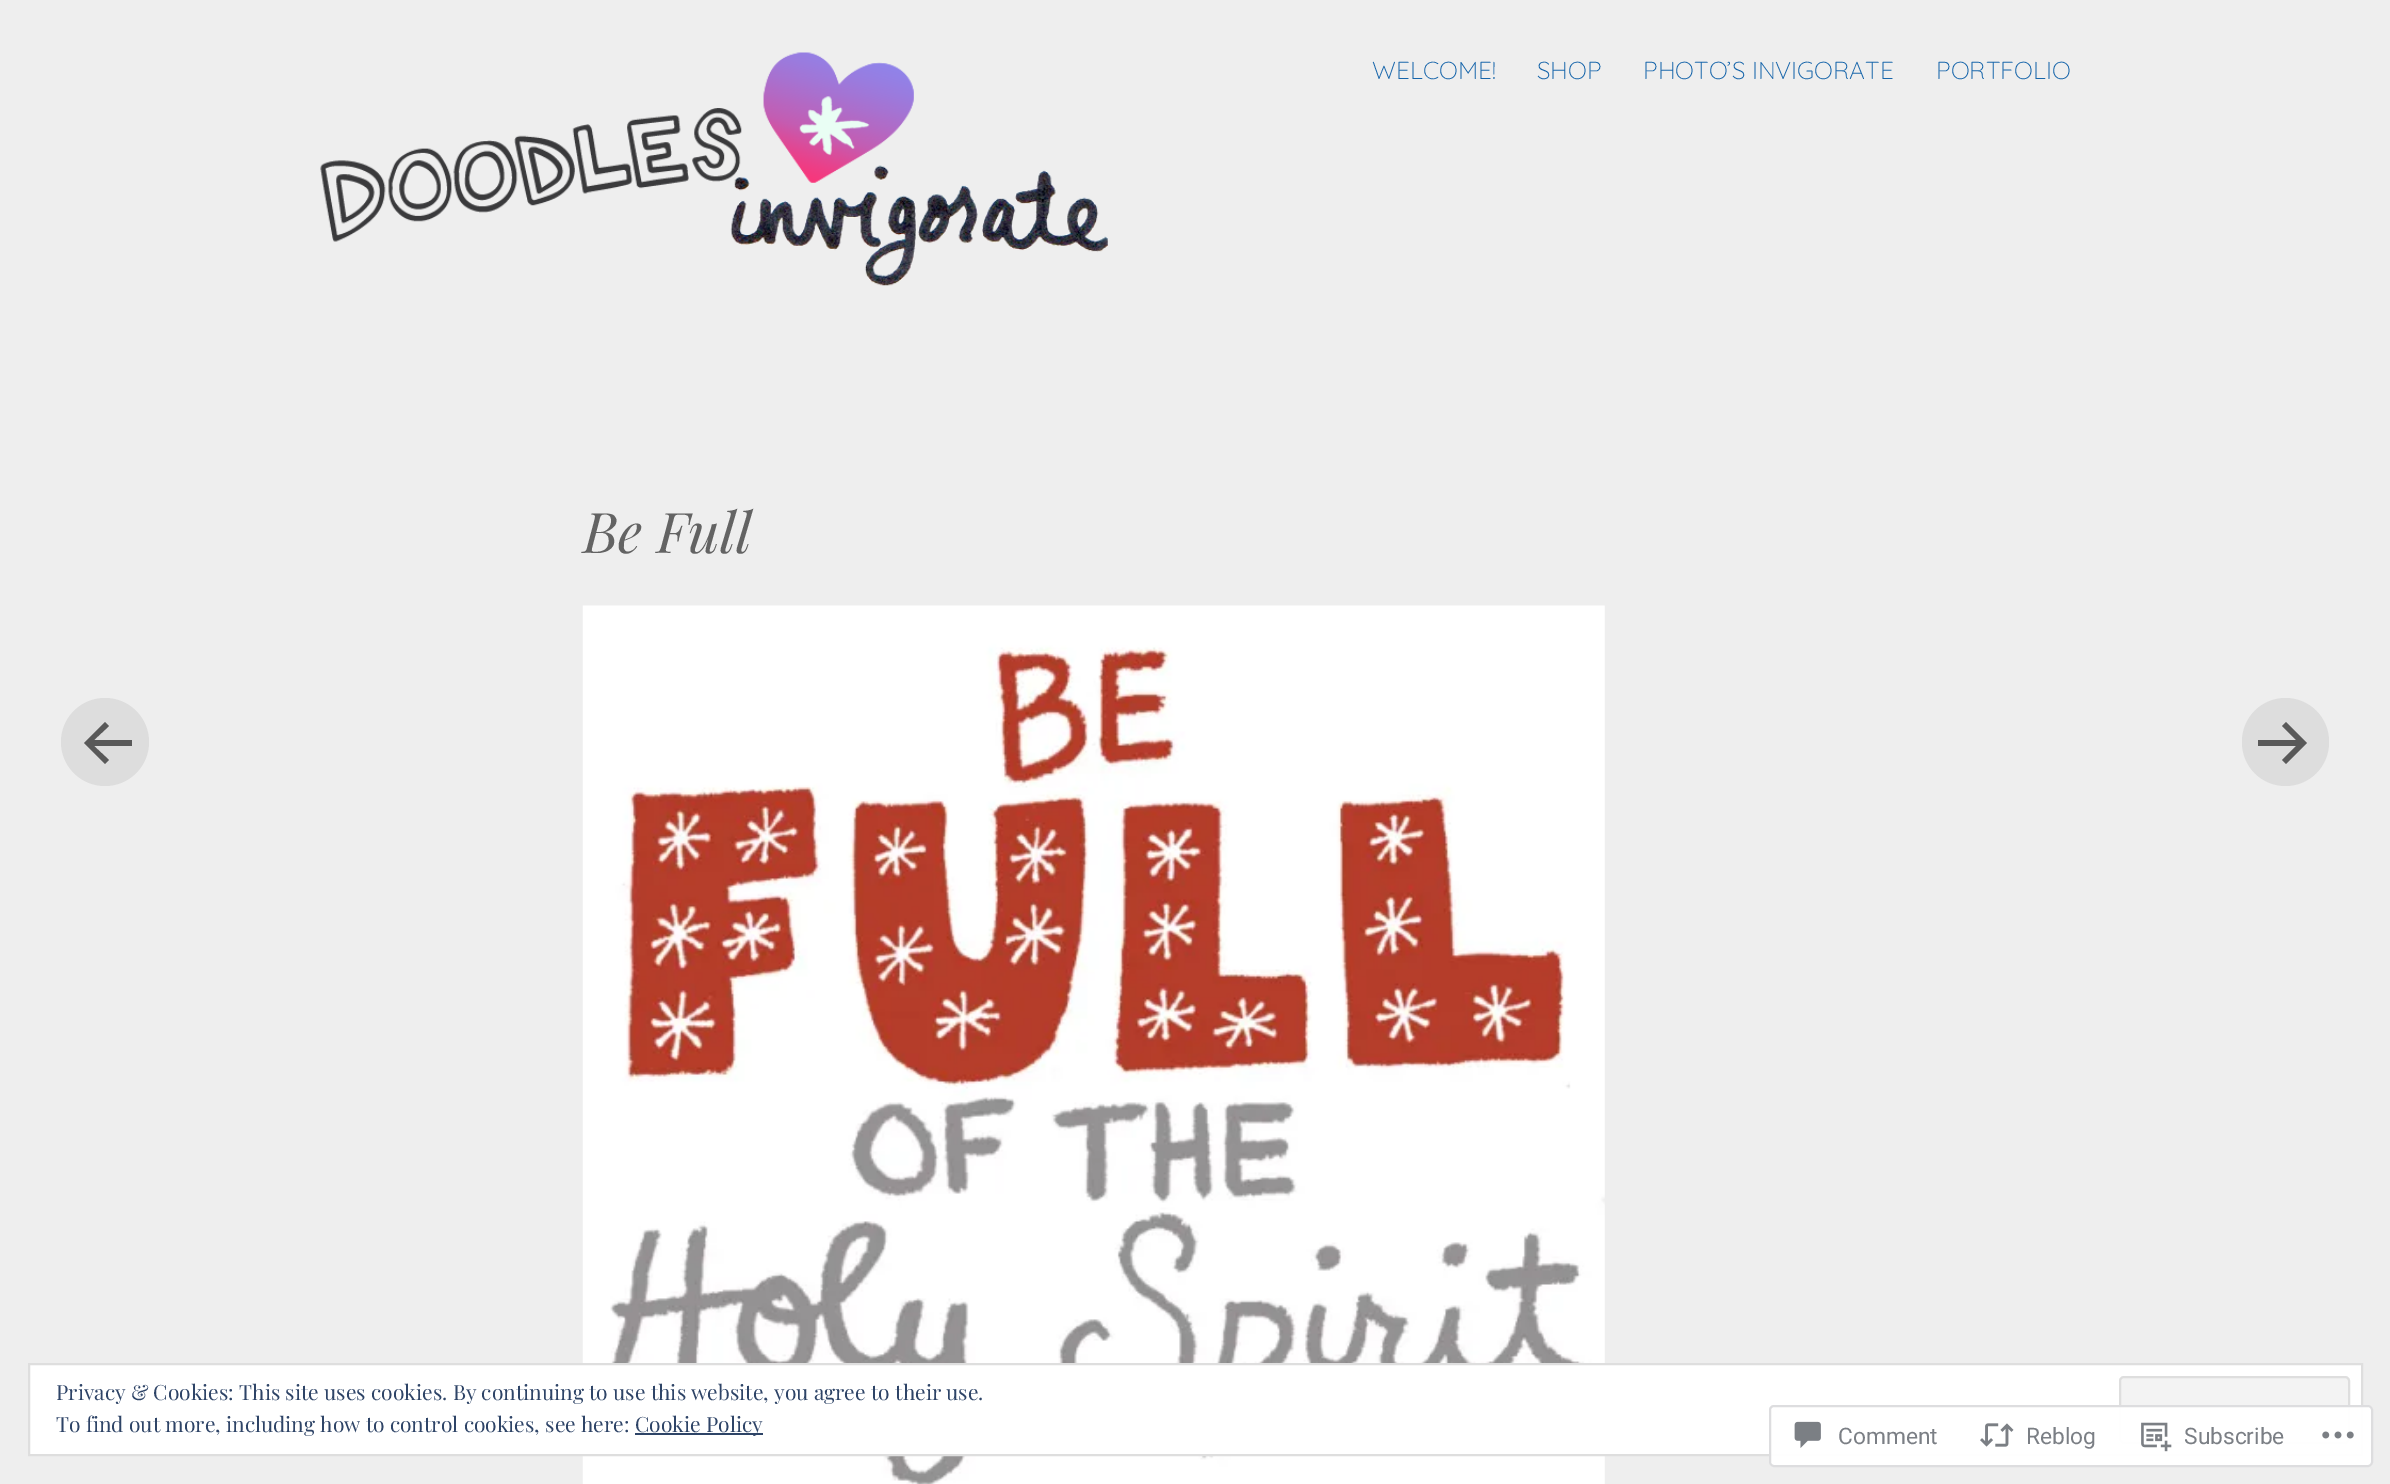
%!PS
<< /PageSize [2390 1484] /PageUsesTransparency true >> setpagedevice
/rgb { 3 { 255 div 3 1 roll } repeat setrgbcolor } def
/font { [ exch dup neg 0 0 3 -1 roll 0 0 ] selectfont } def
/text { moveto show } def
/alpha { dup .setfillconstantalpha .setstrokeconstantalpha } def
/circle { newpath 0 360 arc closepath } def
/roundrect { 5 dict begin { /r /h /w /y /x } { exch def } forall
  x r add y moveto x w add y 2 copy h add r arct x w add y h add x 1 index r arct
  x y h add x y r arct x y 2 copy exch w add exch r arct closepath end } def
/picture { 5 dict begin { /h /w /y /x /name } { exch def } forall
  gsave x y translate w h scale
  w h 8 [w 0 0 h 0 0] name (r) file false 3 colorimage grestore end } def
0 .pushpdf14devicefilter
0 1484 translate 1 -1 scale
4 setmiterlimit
238 238 238 rgb
0 0 2390 1484 rectfill
(img_01.rgb) 320 52 788 234 picture
(img_02.rgb) 582 605 1023 879 picture
221 221 221 rgb
105 742 44 circle fill
89 89 89 rgb
84 743 moveto 21 21 rlineto 4 -4 rlineto -15 -14 rlineto 38 0 rlineto 0 -6 rlineto -38 0 rlineto 15 -14 rlineto -4 -4 rlineto closepath fill
221 221 221 rgb
2242 698 87 88 43.5 roundrect fill
89 89 89 rgb
2307 743 moveto -21 21 rlineto -4 -4 rlineto 14 -14 rlineto -38 0 rlineto 0 -6 rlineto 38 0 rlineto -14 -14 rlineto 4 -4 rlineto closepath fill
255 255 255 rgb
29 1364 moveto 2333 0 rlineto 0 91 rlineto -2333 0 rlineto closepath gsave fill grestore
222 222 222 rgb
2 setlinewidth
stroke
243 243 243 rgb
2120 1377 229 66 4 roundrect gsave fill grestore
222 222 222 rgb
stroke
46 68 103 rgb
635 1433 128 2 rectfill
0.98 alpha
255 255 255 rgb
1769 1405 604 62 5 roundrect fill
220 220 222 rgb
1770 1406 602 60 4 roundrect stroke
1 alpha
(img_03.rgb) 1794 1421 27 27 picture
(img_04.rgb) 1980 1423 34 24 picture
(img_05.rgb) 2141 1422 31 30 picture
(img_06.rgb) 2322 1431 32 8 picture
/Quicksand-Light 24.5 font
23 101 170 rgb
(WELCOME!) 1372 79 text
(SHOP) 1537 79 text
(PHOTO’S INVIGORATE) 1643 79 text
(PORTFOLIO) 1936 79 text
/PlayfairDisplay-Italic 56 font
99 99 99 rgb
(Be Full) 583 553 text
/PlayfairDisplay-Regular 21 font
46 68 103 rgb
(Privacy & Cookies: This site uses cookies. By continuing to use this website, you agree to their use.) 56 1400 text
(To find out more, including how to control cookies, see here:) 56 1432 text
(Cookie Policy) 635 1432 text
/Roboto-Regular 22.75 font
123 127 133 rgb
(Comment) 1838 1444 text
(Reblog) 2026 1444 text
(Subscribe) 2184 1444 text
.poppdf14devicefilter showpage
